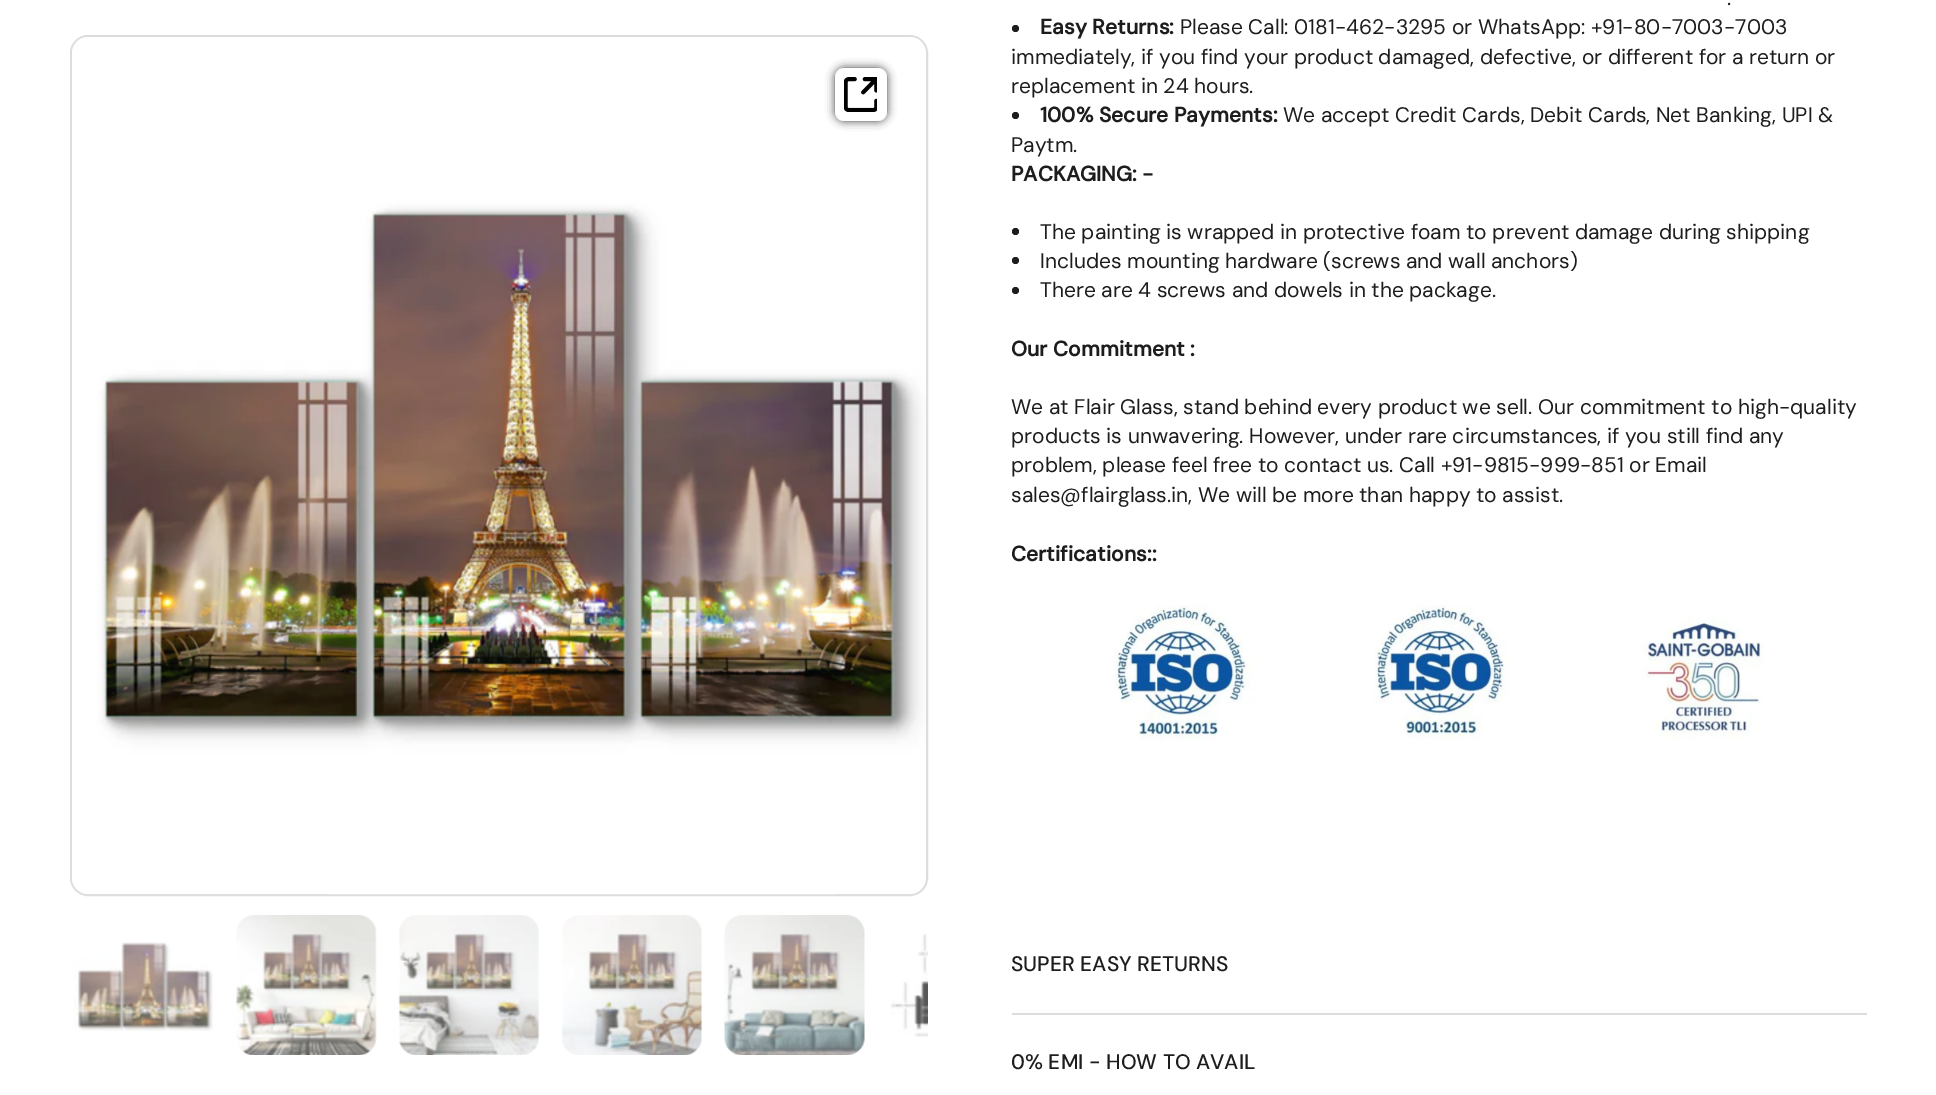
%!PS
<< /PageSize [1936 1095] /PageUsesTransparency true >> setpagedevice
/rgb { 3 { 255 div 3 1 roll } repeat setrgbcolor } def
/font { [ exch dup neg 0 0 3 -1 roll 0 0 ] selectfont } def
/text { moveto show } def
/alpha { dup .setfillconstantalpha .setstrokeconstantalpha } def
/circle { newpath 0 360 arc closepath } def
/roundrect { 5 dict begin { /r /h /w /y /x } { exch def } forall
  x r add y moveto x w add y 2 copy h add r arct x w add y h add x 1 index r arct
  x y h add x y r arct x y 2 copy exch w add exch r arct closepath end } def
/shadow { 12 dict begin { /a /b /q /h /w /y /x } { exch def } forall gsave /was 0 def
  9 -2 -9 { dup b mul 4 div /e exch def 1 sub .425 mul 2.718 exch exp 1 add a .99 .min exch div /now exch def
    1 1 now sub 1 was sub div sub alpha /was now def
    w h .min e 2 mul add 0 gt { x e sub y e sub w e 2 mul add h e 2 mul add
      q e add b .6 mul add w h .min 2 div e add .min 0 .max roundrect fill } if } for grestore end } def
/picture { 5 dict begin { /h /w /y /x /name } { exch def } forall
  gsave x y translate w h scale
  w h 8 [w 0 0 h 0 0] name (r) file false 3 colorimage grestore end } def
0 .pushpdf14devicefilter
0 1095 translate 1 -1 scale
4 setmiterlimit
255 255 255 rgb
0 0 1936 1095 rectfill
221 221 221 rgb
2 setlinewidth
71 36 856 859 17 roundrect stroke
(img_01.rgb) 72 37 854 858 picture
gsave
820 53 moveto 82 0 rlineto 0 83 rlineto -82 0 rlineto closepath 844 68 moveto 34 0 rlineto 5 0 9 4 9 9 rcurveto 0 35 rlineto 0 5 -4 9 -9 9 rcurveto -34 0 rlineto -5 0 -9 -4 -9 -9 rcurveto 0 -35 rlineto 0 -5 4 -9 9 -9 rcurveto closepath eoclip newpath
0 0 0 rgb
835 68 52 53 9 4.5 0.75 shadow
grestore
0.92 alpha
255 255 255 rgb
835 68 52 53 9 roundrect fill
1 alpha
(img_02.rgb) 844 77 33 35 picture
(img_03.rgb) 74 942 139 89 picture
(img_04.rgb) 236 915 141 140 picture
(img_05.rgb) 398 915 142 140 picture
(img_06.rgb) 562 915 140 140 picture
(img_07.rgb) 724 915 141 140 picture
(img_08.rgb) 890 934 38 103 picture
29 29 29 rgb
1015.5 28.5 3.5 circle fill
1015.5 115.5 3.5 circle fill
1015.5 231.5 3.5 circle fill
1015.5 260.5 3.5 circle fill
1015.5 290.5 3.5 circle fill
(img_09.rgb) 1113 605 651 135 picture
221 221 221 rgb
1012 1013 855 2 rectfill
/DMSans-Regular 21 font
29 29 29 rgb
(.) 1727 5 text
/DMSans-Bold 21 font
(Easy Returns:) 1040 34 text
/DMSans-Regular 21 font
(Please Call: 0181-462-3295 or WhatsApp: +91-80-7003-7003) 1180 34 text
(immediately, if you find your product damaged, defective, or different for a return or) 1011 64 text
(replacement in 24 hours.) 1011 93 text
/DMSans-Bold 21 font
(100% Secure Payments:) 1040 122 text
/DMSans-Regular 21 font
(We accept Credit Cards, Debit Cards, Net Banking, UPI &) 1283 122 text
(Paytm.) 1011 152 text
/DMSans-Bold 21 font
(PACKAGING: -) 1011 181 text
/DMSans-Regular 21 font
(The painting is wrapped in protective foam to prevent damage during shipping) 1040 239 text
(Includes mounting hardware \(screws and wall anchors\)) 1040 268 text
(There are 4 screws and dowels in the package.) 1040 297 text
/DMSans-Bold 21 font
(Our Commitment :) 1011 356 text
/DMSans-Regular 21 font
(We at Flair Glass, stand behind every product we sell. Our commitment to high-quality) 1011 414 text
(products is unwavering. However, under rare circumstances, if you still find any) 1011 443 text
(problem, please feel free to contact us. Call +91-9815-999-851 or Email) 1011 472 text
(sales@flairglass.in, We will be more than happy to assist.) 1011 502 text
/DMSans-Bold 21 font
(Certifications::) 1011 561 text
/DMSans-Medium 21 font
(SUPER EASY RETURNS) 1011 971 text
(0% EMI - HOW TO AVAIL) 1011 1069 text
.poppdf14devicefilter showpage
